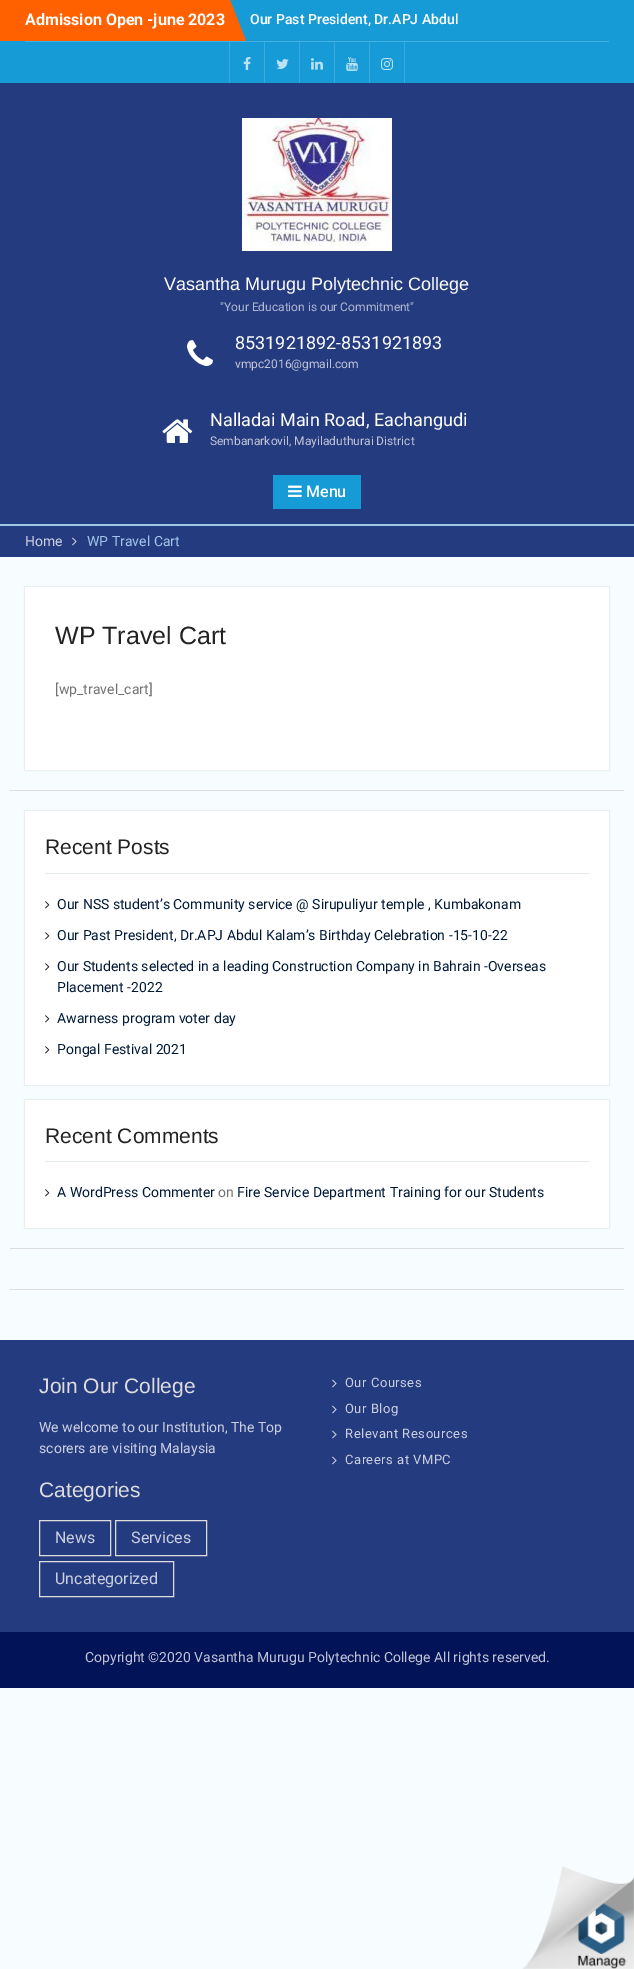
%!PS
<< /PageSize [634 1969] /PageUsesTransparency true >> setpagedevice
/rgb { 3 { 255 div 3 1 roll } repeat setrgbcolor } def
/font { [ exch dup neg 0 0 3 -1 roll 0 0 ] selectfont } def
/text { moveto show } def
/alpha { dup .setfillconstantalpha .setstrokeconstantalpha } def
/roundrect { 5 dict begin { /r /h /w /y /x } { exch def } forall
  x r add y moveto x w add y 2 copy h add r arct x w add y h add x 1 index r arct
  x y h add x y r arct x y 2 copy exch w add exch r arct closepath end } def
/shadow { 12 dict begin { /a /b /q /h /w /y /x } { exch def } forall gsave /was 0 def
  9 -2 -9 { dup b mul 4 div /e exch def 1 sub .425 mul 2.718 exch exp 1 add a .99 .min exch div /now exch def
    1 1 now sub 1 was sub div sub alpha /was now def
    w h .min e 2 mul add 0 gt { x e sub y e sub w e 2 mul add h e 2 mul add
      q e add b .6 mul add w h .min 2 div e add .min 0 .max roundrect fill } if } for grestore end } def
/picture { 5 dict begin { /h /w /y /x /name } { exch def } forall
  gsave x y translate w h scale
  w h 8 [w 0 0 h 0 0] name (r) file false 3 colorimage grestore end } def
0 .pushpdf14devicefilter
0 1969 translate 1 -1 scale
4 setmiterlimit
247 252 254 rgb
0 0 634 1969 rectfill
23 155 215 rgb
0 0 634 83 rectfill
255 96 0 rgb
0 0 230 41 rectfill
230 41 moveto 0 -41 rlineto 16 41 rlineto closepath fill
69 175 223 rgb
25 41 584 1 rectfill
58 170 221 rgb
264 42 1 41 rectfill
229 42 1 41 rectfill
(img_01.rgb) 243 57 8 13 picture
299 42 1 41 rectfill
(img_02.rgb) 276 59 13 10 picture
334 42 1 41 rectfill
(img_03.rgb) 311 58 12 12 picture
369 42 1 41 rectfill
(img_04.rgb) 346 57 12 14 picture
404 42 1 41 rectfill
(img_05.rgb) 381 58 12 12 picture
37 59 128 rgb
0 83 634 441 rectfill
(img_06.rgb) 242 118 150 133 picture
(img_07.rgb) 187 340 26 26 picture
(img_08.rgb) 162 419 31 24 picture
23 155 215 rgb
273 475 88 34 rectfill
(img_09.rgb) 288 485 14 12 picture
37 59 128 rgb
0 526 634 31 rectfill
160 197 232 rgb
0 524 634 2 rectfill
(img_10.rgb) 72 537 5 9 picture
221 221 221 rgb
10 790 614 1 rectfill
207 207 207 rgb
25 587 584 183 0 1 1 shadow
255 255 255 rgb
25 587 584 183 rectfill
221 221 221 rgb
10 1248 614 1 rectfill
207 207 207 rgb
25 811 584 274 0 1 1 shadow
255 255 255 rgb
25 811 584 274 rectfill
231 236 239 rgb
45 873 544 1 rectfill
(img_11.rgb) 45 901 5 8 picture
(img_11.rgb) 45 932 5 8 picture
(img_11.rgb) 45 963 5 8 picture
(img_11.rgb) 45 1015 5 8 picture
(img_11.rgb) 45 1046 5 8 picture
207 207 207 rgb
25 1100 584 128 0 1 1 shadow
255 255 255 rgb
25 1100 584 128 rectfill
231 236 239 rgb
45 1161 544 1 rectfill
(img_11.rgb) 45 1189 5 8 picture
221 221 221 rgb
10 1289 614 1 rectfill
37 59 128 rgb
0 1340 634 292 rectfill
(img_12.rgb) 332 1379 5 9 picture
(img_12.rgb) 332 1405 5 9 picture
(img_12.rgb) 332 1430 5 9 picture
(img_12.rgb) 332 1456 5 9 picture
221 221 221 rgb
39.5 1520.5 71 35 rectstroke
115.5 1520.5 91 35 rectstroke
39.5 1561.5 134 35 rectstroke
3 19 88 rgb
0 1632 634 56 rectfill
(img_13.rgb) 522 1866 112 103 picture
/Roboto-Bold 16 font
255 255 255 rgb
(Admission Open -june 2023) 25 25 text
/Roboto-Medium 14 font
(Our Past President, Dr.APJ Abdul) 250 24 text
/LiberationSans-Regular 18 font
(Vasantha Murugu Polytechnic College) 164 290 text
/Roboto-Regular 12 font
177 184 209 rgb
("Your Education is our Commitment") 220 311 text
/Roboto-Regular 18 font
255 255 255 rgb
(8531921892-8531921893) 235 349 text
/Roboto-Regular 12 font
192 196 213 rgb
(vmpc2016@gmail.com) 235 368 text
/Roboto-Regular 18 font
255 255 255 rgb
(Nalladai Main Road, Eachangudi) 210 426 text
/Roboto-Regular 12 font
192 196 213 rgb
(Sembanarkovil, Mayiladuthurai District) 210 445 text
/Roboto-Medium 16 font
255 255 255 rgb
(Menu) 306 497 text
/Roboto-Regular 14 font
203 208 225 rgb
(Home) 25 546 text
160 197 232 rgb
(WP Travel Cart) 87 546 text
/LiberationSans-Regular 25 font
34 34 34 rgb
(WP Travel Cart) 55 644 text
/Roboto-Regular 14 font
114 114 114 rgb
([wp_travel_cart]) 55 694 text
/LiberationSans-Regular 21 font
34 34 34 rgb
(Recent Posts) 45 854 text
/Roboto-Regular 14 font
0 24 55 rgb
(Our NSS student’s Community service @ Sirupuliyur temple , Kumbakonam) 57 909 text
(Our Past President, Dr.APJ Abdul Kalam’s Birthday Celebration -15-10-22) 57 940 text
(Our Students selected in a leading Construction Company in Bahrain -Overseas) 57 971 text
(Placement -2022) 57 992 text
(Awarness program voter day) 57 1023 text
(Pongal Festival 2021) 57 1054 text
/LiberationSans-Regular 21 font
34 34 34 rgb
(Recent Comments) 45 1143 text
/Roboto-Regular 14 font
0 24 55 rgb
(A WordPress Commenter) 57 1197 text
114 114 114 rgb
(on) 218 1197 text
0 24 55 rgb
(Fire Service Department Training for our Students) 237 1197 text
/LiberationSans-Regular 21 font
221 221 221 rgb
(Join Our College) 39 1393 text
/Roboto-Regular 14 font
203 208 225 rgb
(We welcome to our Institution, The Top) 39 1432 text
(scorers are visiting Malaysia) 39 1453 text
/Roboto-Regular 13 font
345 1387 moveto 0.5 0 (Our Courses) ashow
345 1413 moveto 0.5 0 (Our Blog) ashow
345 1438 moveto 0.5 0 (Relevant Resources) ashow
345 1464 moveto 0.5 0 (Careers at VMPC) ashow
/LiberationSans-Regular 21 font
221 221 221 rgb
(Categories) 39 1497 text
/Roboto-Regular 16 font
203 208 225 rgb
(News) 55 1543 text
(Services) 131 1543 text
(Uncategorized) 55 1584 text
/Roboto-Regular 14 font
192 196 213 rgb
(Copyright ©2020 Vasantha Murugu Polytechnic College All rights reserved.) 85 1662 text
.poppdf14devicefilter showpage
